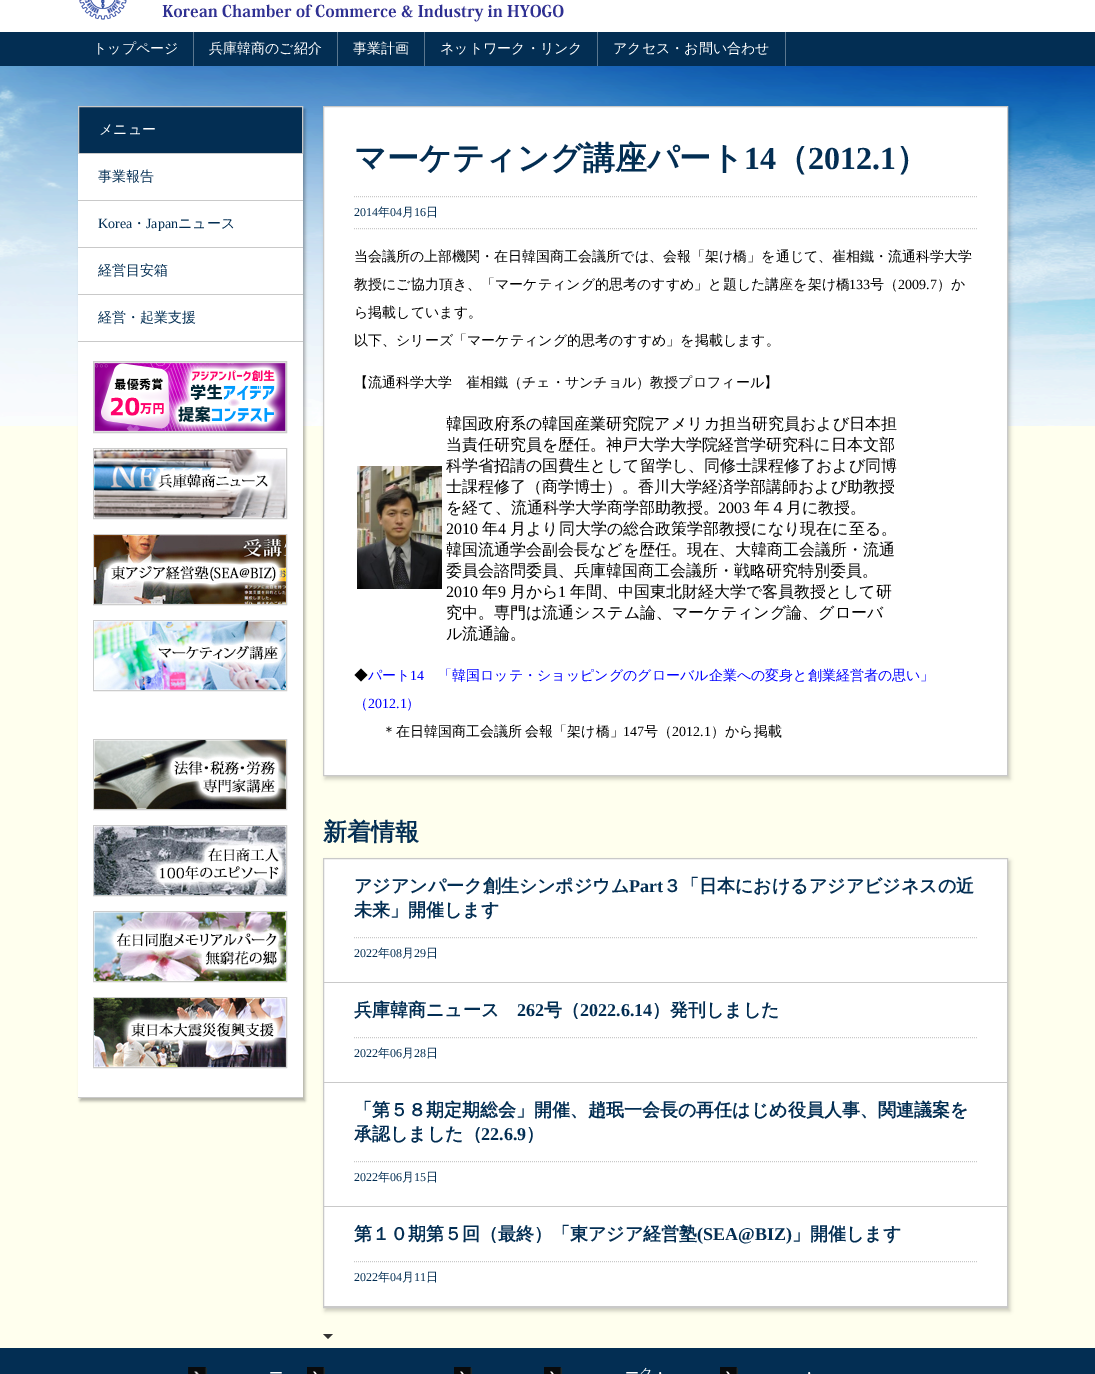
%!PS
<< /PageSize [1095 1374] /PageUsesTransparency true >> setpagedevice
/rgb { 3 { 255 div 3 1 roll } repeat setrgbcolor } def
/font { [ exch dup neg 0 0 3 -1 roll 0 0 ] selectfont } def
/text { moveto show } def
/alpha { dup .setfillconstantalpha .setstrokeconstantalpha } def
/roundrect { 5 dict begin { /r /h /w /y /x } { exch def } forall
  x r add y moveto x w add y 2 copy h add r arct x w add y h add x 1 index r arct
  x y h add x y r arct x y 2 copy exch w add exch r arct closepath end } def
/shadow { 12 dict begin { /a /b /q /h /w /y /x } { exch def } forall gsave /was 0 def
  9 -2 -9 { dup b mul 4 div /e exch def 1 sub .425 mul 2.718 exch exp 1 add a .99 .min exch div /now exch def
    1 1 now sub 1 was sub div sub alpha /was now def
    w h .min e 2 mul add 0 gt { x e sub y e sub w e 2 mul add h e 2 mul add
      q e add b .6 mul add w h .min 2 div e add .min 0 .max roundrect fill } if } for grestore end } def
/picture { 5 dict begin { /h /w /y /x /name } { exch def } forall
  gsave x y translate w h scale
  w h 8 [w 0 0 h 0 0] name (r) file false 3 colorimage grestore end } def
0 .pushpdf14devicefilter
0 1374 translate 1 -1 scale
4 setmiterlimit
255 255 238 rgb
0 0 1095 1374 rectfill
255 255 255 rgb
0 0 1095 32 rectfill
(img_01.rgb) 79 0 485 22 picture
3 46 83 rgb
0 32 1095 34 rectfill
91 119 143 rgb
193 32 1 34 rectfill
337 32 1 34 rectfill
424 32 1 34 rectfill
597 32 1 34 rectfill
785 32 1 34 rectfill
(img_02.rgb) 0 66 1095 360 picture
0 0 0 rgb
80 109 225 992 0 1.5 0.3 shadow
3 46 83 rgb
78.5 106.5 moveto 224 0 rlineto 0 47 rlineto -224 0 rlineto closepath gsave fill grestore
201 201 201 rgb
stroke
255 255 255 rgb
78 154 225 46 rectfill
201 201 201 rgb
78 200 225 1 rectfill
255 255 255 rgb
78 201 225 46 rectfill
201 201 201 rgb
78 247 225 1 rectfill
255 255 255 rgb
78 248 225 46 rectfill
201 201 201 rgb
78 294 225 1 rectfill
255 255 255 rgb
78 295 225 46 rectfill
201 201 201 rgb
78 341 225 1 rectfill
255 255 255 rgb
78 342 225 755 rectfill
201 201 201 rgb
78 1097 225 1 rectfill
204 204 204 rgb
93.5 361.5 193 71 rectstroke
(img_03.rgb) 94 362 192 70 picture
93.5 448.5 193 70 rectstroke
(img_04.rgb) 94 449 192 69 picture
93.5 534.5 193 70 rectstroke
(img_05.rgb) 94 535 192 69 picture
93.5 620.5 193 70 rectstroke
(img_06.rgb) 94 621 192 69 picture
93.5 739.5 193 70 rectstroke
(img_07.rgb) 94 740 192 69 picture
93.5 825.5 193 70 rectstroke
(img_08.rgb) 94 826 192 69 picture
93.5 911.5 193 70 rectstroke
(img_09.rgb) 94 912 192 69 picture
93.5 997.5 193 70 rectstroke
(img_10.rgb) 94 998 192 69 picture
0 0 0 rgb
325 109 685 670 0 2 0.2 shadow
255 255 255 rgb
323.5 106.5 moveto 684 0 rlineto 0 669 rlineto -684 0 rlineto closepath gsave fill grestore
201 201 201 rgb
stroke
[1 1] 0 setdash
354 196.5 moveto 623 0 rlineto stroke
354 228.5 moveto 623 0 rlineto stroke
(img_11.rgb) 357 466 85 123 picture
51 51 51 rgb
323 1334 moveto 10 0 rlineto -5 5 rlineto closepath fill
0 0 0 rgb
325 861 685 450 0 2 0.2 shadow
255 255 255 rgb
324 859 683 447 rectfill
201 201 201 rgb
[] 0 setdash
323.5 858.5 684 449 rectstroke
[1 1] 0 setdash
354 937.5 moveto 623 0 rlineto stroke
324 982 683 1 rectfill
354 1037.5 moveto 623 0 rlineto stroke
324 1082 683 1 rectfill
354 1161.5 moveto 623 0 rlineto stroke
324 1206 683 1 rectfill
354 1261.5 moveto 623 0 rlineto stroke
324 1306 683 1 rectfill
3 46 83 rgb
0 1348 1095 26 rectfill
(img_12.rgb) 188 1367 19 7 picture
(img_13.rgb) 307 1367 18 7 picture
(img_13.rgb) 454 1367 18 7 picture
(img_13.rgb) 544 1367 18 7 picture
(img_13.rgb) 720 1367 18 7 picture
/WenQuanYiZenHei-Medium 14 font
255 255 255 rgb
(トップページ) 93 53 text
(兵庫韓商のご紹介) 209 53 text
(事業計画) 353 53 text
(ネットワーク・リンク) 440 53 text
(アクセス・お問い合わせ) 613 53 text
(メニュー) 99 134 text
3 46 83 rgb
(事業報告) 98 181 text
/LiberationSerif-Regular 14 font
(Korea) 98 228 text
/WenQuanYiZenHei-Medium 14 font
(・) 132 228 text
/LiberationSerif-Regular 14 font
(Japan) 146 228 text
/WenQuanYiZenHei-Medium 14 font
(ニュース) 178 228 text
(経営目安箱) 98 275 text
(経営・起業支援) 98 322 text
/WenQuanYiZenHei-Bold 32 font
(マーケティング講座パート) 354 169 text
/LiberationSerif-Bold 32 font
(14) 744 169 text
/WenQuanYiZenHei-Bold 32 font
(（) 776 169 text
/LiberationSerif-Bold 32 font
(2012.1) 808 169 text
/WenQuanYiZenHei-Bold 32 font
(）) 896 169 text
/LiberationSerif-Regular 12 font
(2014) 354 216 text
/WenQuanYiZenHei-Medium 12 font
(年) 378 216 text
/LiberationSerif-Regular 12 font
(04) 390 216 text
/WenQuanYiZenHei-Medium 12 font
(月) 402 216 text
/LiberationSerif-Regular 12 font
(16) 414 216 text
/WenQuanYiZenHei-Medium 12 font
(日) 426 216 text
/WenQuanYiZenHei-Medium 14 font
0 0 0 rgb
(当会議所の上部機関・在日韓国商工会議所では、会報「架け橋」を通じて、崔相鐵・流通科学大学) 354 261 text
(教授にご協力頂き、「マーケティング的思考のすすめ」と題した講座を架け橋) 354 289 text
/LiberationSerif-Regular 14 font
(133) 849 289 text
/WenQuanYiZenHei-Medium 14 font
(号（) 870 289 text
/LiberationSerif-Regular 14 font
(2009.7) 898 289 text
/WenQuanYiZenHei-Medium 14 font
(）か) 937 289 text
(ら掲載しています。) 354 317 text
(以下、シリーズ「マーケティング的思考のすすめ」を掲載します。) 354 345 text
(【流通科学大学　崔相鐵（チェ・サンチョル）教授プロフィール】) 354 387 text
/WenQuanYiZenHei-Medium 16 font
(韓国政府系の韓国産業研究院アメリカ担当研究員および日本担) 446 429 text
(当責任研究員を歴任。神戸大学大学院経営学研究科に日本文部) 446 450 text
(科学省招請の国費生として留学し、同修士課程修了および同博) 446 471 text
(士課程修了（商学博士）。香川大学経済学部講師および助教授) 446 492 text
(を経て、流通科学大学商学部助教授。) 446 513 text
/LiberationSerif-Regular 16 font
(2003) 718 513 text
/WenQuanYiZenHei-Medium 16 font
(年４月に教授。) 754 513 text
/LiberationSerif-Regular 16 font
(2010) 446 534 text
/WenQuanYiZenHei-Medium 16 font
(年) 482 534 text
/LiberationSerif-Regular 16 font
(4) 498 534 text
/WenQuanYiZenHei-Medium 16 font
(月より同大学の総合政策学部教授になり現在に至る。) 510 534 text
(韓国流通学会副会長などを歴任。現在、大韓商工会議所・流通) 446 555 text
(委員会諮問委員、兵庫韓国商工会議所・戦略研究特別委員。) 446 576 text
/LiberationSerif-Regular 16 font
(2010) 446 597 text
/WenQuanYiZenHei-Medium 16 font
(年) 482 597 text
/LiberationSerif-Regular 16 font
(9) 498 597 text
/WenQuanYiZenHei-Medium 16 font
(月から) 510 597 text
/LiberationSerif-Regular 16 font
(1) 558 597 text
/WenQuanYiZenHei-Medium 16 font
(年間、中国東北財経大学で客員教授として研) 570 597 text
(究中。専門は流通システム論、マーケティング論、グローバ) 446 618 text
(ル流通論。) 446 639 text
/WenQuanYiZenHei-Medium 14 font
(◆) 354 680 text
0 0 255 rgb
(パート) 368 680 text
/LiberationSerif-Regular 14 font
(14) 410 680 text
/WenQuanYiZenHei-Medium 14 font
(「韓国ロッテ・ショッピングのグローバル企業への変身と創業経営者の思い」) 438 680 text
(（) 354 708 text
/LiberationSerif-Regular 14 font
(2012.1) 368 708 text
/WenQuanYiZenHei-Medium 14 font
(）) 406 708 text
0 0 0 rgb
382 736 moveto -1 0 32 (＊在日韓国商工会議所 会報「架け橋」) widthshow
/LiberationSerif-Regular 14 font
(147) 623 736 text
/WenQuanYiZenHei-Medium 14 font
(号（) 644 736 text
/LiberationSerif-Regular 14 font
(2012.1) 672 736 text
/WenQuanYiZenHei-Medium 14 font
(）から掲載) 711 736 text
/WenQuanYiZenHei-Bold 24 font
3 46 83 rgb
(新着情報) 323 840 text
/WenQuanYiZenHei-Bold 18 font
(アジアンパーク創生シンポジウム) 354 892 text
/LiberationSerif-Bold 18 font
(Part) 629 892 text
/WenQuanYiZenHei-Bold 18 font
(３「日本におけるアジアビジネスの近) 663 892 text
(未来」開催します) 354 916 text
/LiberationSerif-Regular 12 font
(2022) 354 957 text
/WenQuanYiZenHei-Medium 12 font
(年) 378 957 text
/LiberationSerif-Regular 12 font
(08) 390 957 text
/WenQuanYiZenHei-Medium 12 font
(月) 402 957 text
/LiberationSerif-Regular 12 font
(29) 414 957 text
/WenQuanYiZenHei-Medium 12 font
(日) 426 957 text
/WenQuanYiZenHei-Bold 18 font
(兵庫韓商ニュース) 354 1016 text
/LiberationSerif-Bold 18 font
(262) 517 1016 text
/WenQuanYiZenHei-Bold 18 font
(号（) 544 1016 text
/LiberationSerif-Bold 18 font
(2022.6.14) 580 1016 text
/WenQuanYiZenHei-Bold 18 font
(）発刊しました) 652 1016 text
/LiberationSerif-Regular 12 font
(2022) 354 1057 text
/WenQuanYiZenHei-Medium 12 font
(年) 378 1057 text
/LiberationSerif-Regular 12 font
(06) 390 1057 text
/WenQuanYiZenHei-Medium 12 font
(月) 402 1057 text
/LiberationSerif-Regular 12 font
(28) 414 1057 text
/WenQuanYiZenHei-Medium 12 font
(日) 426 1057 text
/WenQuanYiZenHei-Bold 18 font
(「第５８期定期総会」開催、趙珉一会長の再任はじめ役員人事、関連議案を) 354 1116 text
(承認しました（) 354 1140 text
/LiberationSerif-Bold 18 font
(22.6.9) 481 1140 text
/WenQuanYiZenHei-Bold 18 font
(）) 526 1140 text
/LiberationSerif-Regular 12 font
(2022) 354 1181 text
/WenQuanYiZenHei-Medium 12 font
(年) 378 1181 text
/LiberationSerif-Regular 12 font
(06) 390 1181 text
/WenQuanYiZenHei-Medium 12 font
(月) 402 1181 text
/LiberationSerif-Regular 12 font
(15) 414 1181 text
/WenQuanYiZenHei-Medium 12 font
(日) 426 1181 text
/WenQuanYiZenHei-Bold 18 font
(第１０期第５回（最終）「東アジア経営塾) 354 1240 text
/LiberationSerif-Bold 18 font
(\(SEA@BIZ\)) 697 1240 text
/WenQuanYiZenHei-Bold 18 font
(」開催します) 792 1240 text
/LiberationSerif-Regular 12 font
(2022) 354 1281 text
/WenQuanYiZenHei-Medium 12 font
(年) 378 1281 text
/LiberationSerif-Regular 12 font
(04) 390 1281 text
/WenQuanYiZenHei-Medium 12 font
(月) 402 1281 text
/LiberationSerif-Regular 12 font
(11) 414 1281 text
/WenQuanYiZenHei-Medium 12 font
(日) 426 1281 text
/WenQuanYiZenHei-Medium 14 font
255 255 255 rgb
(ー) 269 1378 text
(ーク・) 625 1378 text
(・) 802 1378 text
.poppdf14devicefilter showpage
